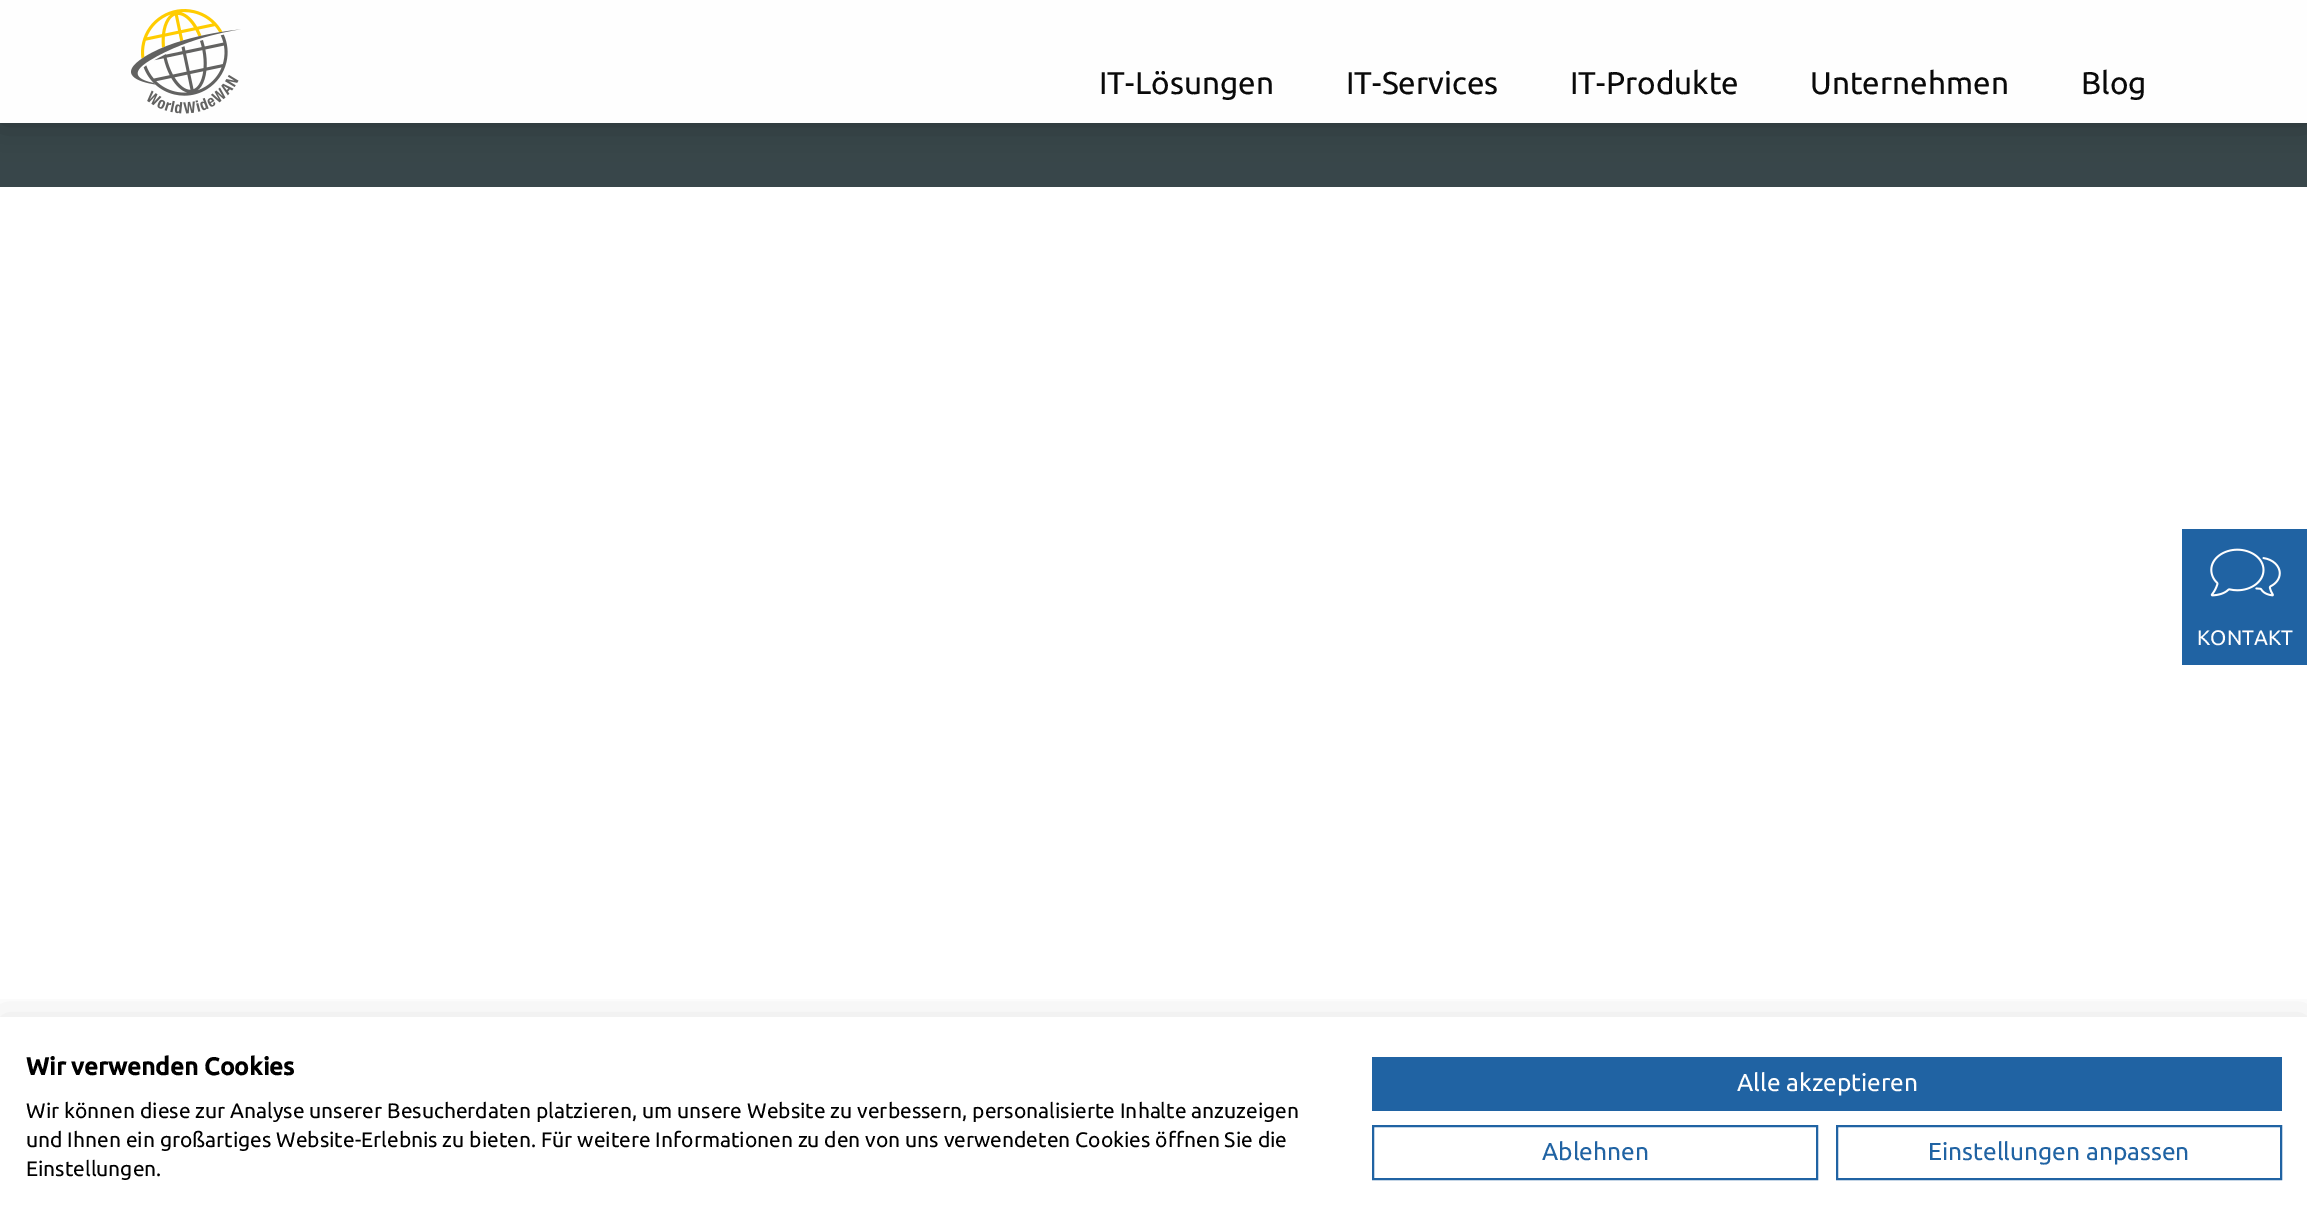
%!PS
<< /PageSize [2307 1231] /PageUsesTransparency true >> setpagedevice
/rgb { 3 { 255 div 3 1 roll } repeat setrgbcolor } def
/font { [ exch dup neg 0 0 3 -1 roll 0 0 ] selectfont } def
/text { moveto show } def
/alpha { dup .setfillconstantalpha .setstrokeconstantalpha } def
/roundrect { 5 dict begin { /r /h /w /y /x } { exch def } forall
  x r add y moveto x w add y 2 copy h add r arct x w add y h add x 1 index r arct
  x y h add x y r arct x y 2 copy exch w add exch r arct closepath end } def
/shadow { 12 dict begin { /a /b /q /h /w /y /x } { exch def } forall gsave /was 0 def
  9 -2 -9 { dup b mul 4 div /e exch def 1 sub .425 mul 2.718 exch exp 1 add a .99 .min exch div /now exch def
    1 1 now sub 1 was sub div sub alpha /was now def
    w h .min e 2 mul add 0 gt { x e sub y e sub w e 2 mul add h e 2 mul add
      q e add b .6 mul add w h .min 2 div e add .min 0 .max roundrect fill } if } for grestore end } def
/picture { 5 dict begin { /h /w /y /x /name } { exch def } forall
  gsave x y translate w h scale
  w h 8 [w 0 0 h 0 0] name (r) file false 3 colorimage grestore end } def
0 .pushpdf14devicefilter
0 1231 translate 1 -1 scale
4 setmiterlimit
255 255 255 rgb
0 0 2307 1231 rectfill
56 70 74 rgb
0 123 2307 64 rectfill
10 10 10 rgb
0 0 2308 123 0 17.5 0.3 shadow
254 254 254 rgb
0 0 2307 123 rectfill
(img_01.rgb) 131 9 110 105 picture
32 99 163 rgb
2182 529 125 136 rectfill
(img_02.rgb) 2210 548 71 49 picture
gsave
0 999 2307 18 rectclip
0 0 0 rgb
0 1017 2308 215 0 21 0.1 shadow
grestore
1372 1057 910 54 rectfill
2 setlinewidth
1373 1126 444 53 rectstroke
1837 1126 444 53 rectstroke
/Ubuntu-Regular 31.5 font
10 10 10 rgb
(IT-Lösungen) 1099 94 text
(IT-Services) 1346 94 text
(IT-Produkte) 1570 94 text
(Unternehmen) 1810 94 text
(Blog) 2081 94 text
/Ubuntu-Regular 21 font
254 254 254 rgb
(KONTAKT) 2197 645 text
/Ubuntu-Bold 24.5 font
0 0 0 rgb
(Wir verwenden Cookies) 26 1075 text
/Ubuntu-Regular 21 font
(Wir können diese zur Analyse unserer Besucherdaten platzieren, um unsere Website zu verbessern, personalisierte Inhalte anzuzeigen) 26 1118 text
(und Ihnen ein großartiges Website-Erlebnis zu bieten. Für weitere Informationen zu den von uns verwendeten Cookies öffnen Sie die) 26 1147 text
(Einstellungen.) 26 1176 text
/Ubuntu-Regular 24.5 font
254 254 254 rgb
(Alle akzeptieren) 1737 1091 text
32 99 163 rgb
(Ablehnen) 1542 1160 text
(Einstellungen anpassen) 1928 1160 text
.poppdf14devicefilter showpage
